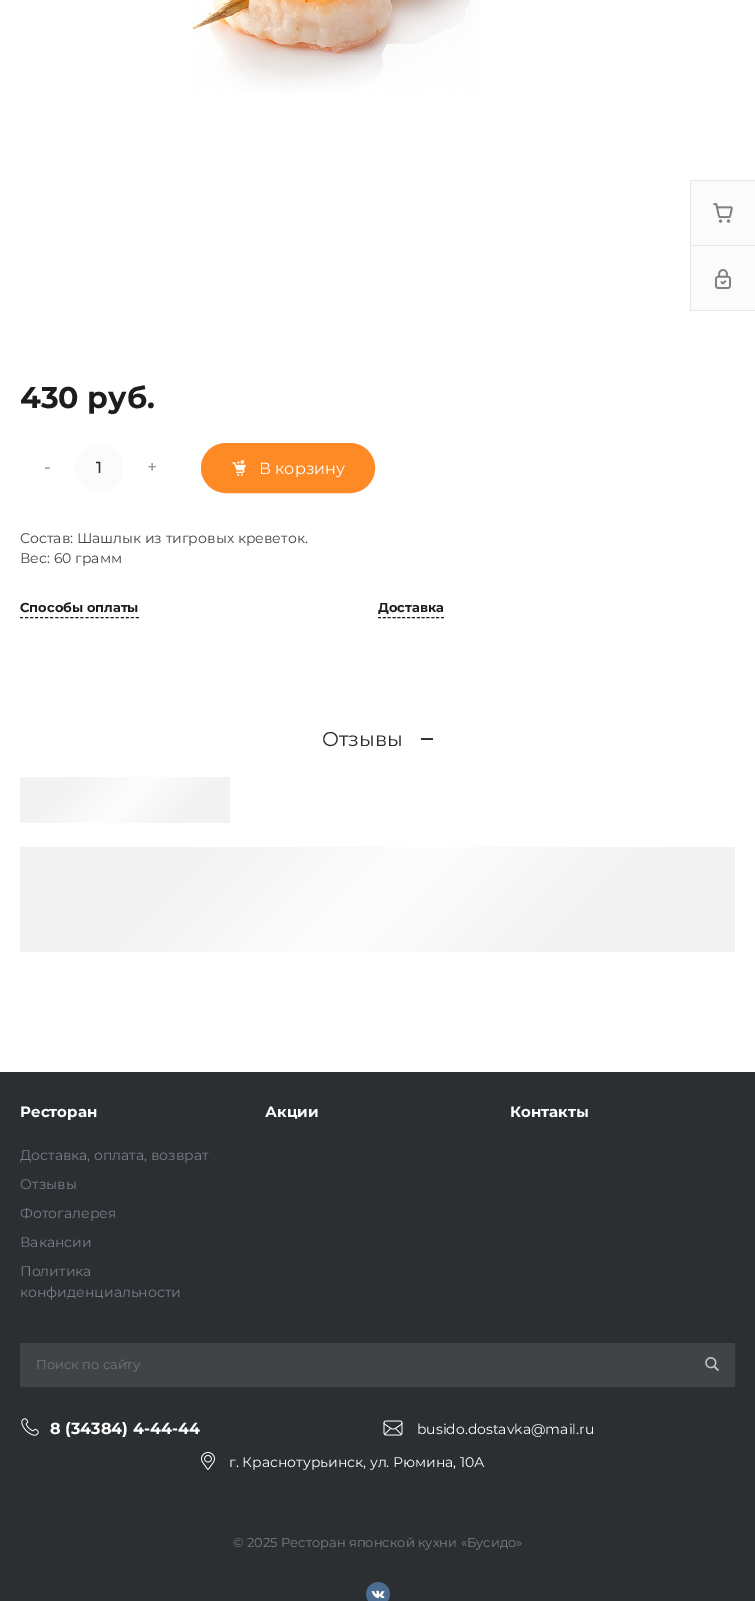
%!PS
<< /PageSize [755 1601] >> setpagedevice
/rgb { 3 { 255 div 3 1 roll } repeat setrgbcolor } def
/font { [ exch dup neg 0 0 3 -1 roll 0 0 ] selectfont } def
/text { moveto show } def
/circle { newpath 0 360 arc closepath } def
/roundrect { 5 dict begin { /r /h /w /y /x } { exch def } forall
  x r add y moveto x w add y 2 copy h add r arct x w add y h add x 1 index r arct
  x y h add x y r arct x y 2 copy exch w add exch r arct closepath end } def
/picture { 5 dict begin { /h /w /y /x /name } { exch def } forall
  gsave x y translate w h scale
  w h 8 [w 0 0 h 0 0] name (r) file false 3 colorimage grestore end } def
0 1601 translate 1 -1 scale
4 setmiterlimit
255 255 255 rgb
0 0 755 1601 rectfill
251 251 251 rgb
691 181 64 129 rectfill
231 231 231 rgb
690 180 65 1 rectfill
690 310 65 1 rectfill
690 180 1 131 rectfill
691 245 64 1 rectfill
(img_01.rgb) 713 203 20 20 picture
(img_02.rgb) 715 269 16 20 picture
(img_03.rgb) 190 0 290 93 picture
251 251 251 rgb
99 468 24 circle fill
254 138 37 rgb
202 444 172 48 24 roundrect gsave fill grestore
2 setlinewidth
stroke
(img_04.rgb) 232 460 14 16 picture
29 29 29 rgb
1 setlinewidth
[3 2.04] 0 setdash
20 617.5 moveto 119 0 rlineto stroke
[3 1.85] 0 setdash
378 617.5 moveto 66 0 rlineto stroke
51 51 51 rgb
421 738 12 2 rectfill
gsave 20 777 210 46 2 roundrect clip newpath
<< /ShadingType 2 /ColorSpace /DeviceRGB /Coords [-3 672 253 928] /Extend [true true] /Function << /FunctionType 3 /Domain [0 1] /Functions [<< /FunctionType 2 /Domain [0 1] /C0 [0.949 0.949 0.949] /C1 [0.949 0.949 0.949] /N 1 >> << /FunctionType 2 /Domain [0 1] /C0 [0.949 0.949 0.949] /C1 [0.992 0.992 0.992] /N 1 >> << /FunctionType 2 /Domain [0 1] /C0 [0.992 0.992 0.992] /C1 [0.949 0.949 0.949] /N 1 >> << /FunctionType 2 /Domain [0 1] /C0 [0.949 0.949 0.949] /C1 [0.949 0.949 0.949] /N 1 >>] /Bounds [0.35 0.5 0.65] /Encode [0 1 0 1 0 1 0 1] >> >> shfill grestore
gsave 20 847 715 105 2 roundrect clip newpath
<< /ShadingType 2 /ColorSpace /DeviceRGB /Coords [-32 489 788 1309] /Extend [true true] /Function << /FunctionType 3 /Domain [0 1] /Functions [<< /FunctionType 2 /Domain [0 1] /C0 [0.949 0.949 0.949] /C1 [0.949 0.949 0.949] /N 1 >> << /FunctionType 2 /Domain [0 1] /C0 [0.949 0.949 0.949] /C1 [0.992 0.992 0.992] /N 1 >> << /FunctionType 2 /Domain [0 1] /C0 [0.992 0.992 0.992] /C1 [0.949 0.949 0.949] /N 1 >> << /FunctionType 2 /Domain [0 1] /C0 [0.949 0.949 0.949] /C1 [0.949 0.949 0.949] /N 1 >>] /Bounds [0.35 0.5 0.65] /Encode [0 1 0 1 0 1 0 1] >> >> shfill grestore
43 47 50 rgb
0 1072 755 529 rectfill
65 68 71 rgb
20.5 1343.5 714 43 1.5 roundrect gsave fill grestore
[] 0 setdash
stroke
(img_05.rgb) 705 1357 14 14 picture
(img_06.rgb) 21 1418 18 18 picture
(img_07.rgb) 383 1420 20 16 picture
(img_08.rgb) 201 1452 14 18 picture
(img_09.rgb) 366 1582 24 19 picture
/Montserrat-Bold 30 font
29 29 29 rgb
(430 руб.) 20 408 text
/Montserrat-Regular 18 font
132 132 132 rgb
(-) 44 473 text
/Montserrat-Medium 16 font
39 39 39 rgb
(1) 96 473 text
/Montserrat-Regular 18 font
132 132 132 rgb
(+) 147 473 text
/Montserrat-Regular 16 font
255 255 255 rgb
(В корзину) 259 474 text
/Montserrat-Regular 14 font
68 68 68 rgb
(Состав: Шашлык из тигровых креветок.) 20 543 text
(Вес: 60 грамм) 20 563 text
/Montserrat-Bold 13 font
29 29 29 rgb
(Способы оплаты) 20 612 text
(Доставка) 378 612 text
/Montserrat-Regular 20 font
45 45 45 rgb
(Отзывы) 322 746 text
/Montserrat-Bold 15 font
255 255 255 rgb
(Ресторан) 20 1117 text
/Montserrat-Regular 14 font
119 126 137 rgb
(Доставка, оплата, возврат) 20 1160 text
(Отзывы) 20 1189 text
(Фотогалерея) 20 1218 text
(Вакансии) 20 1247 text
(Политика) 20 1276 text
(конфиденциальности) 20 1297 text
/Montserrat-Bold 15 font
255 255 255 rgb
(Акции) 265 1117 text
(Контакты) 510 1117 text
/Montserrat-Regular 13 font
117 117 117 rgb
(Поиск по сайту) 36 1369 text
/Montserrat-Bold 16 font
255 255 255 rgb
(8 \(34384\) 4-44-44) 50 1434 text
/Montserrat-Regular 14 font
(busido.dostavka@mail.ru) 417 1434 text
(г. Краснотурьинск, ул. Рюмина, 10А) 229 1467 text
/Montserrat-Regular 13 font
119 126 137 rgb
(© 2025 Ресторан японской кухни «Бусидо») 233 1547 text
showpage
